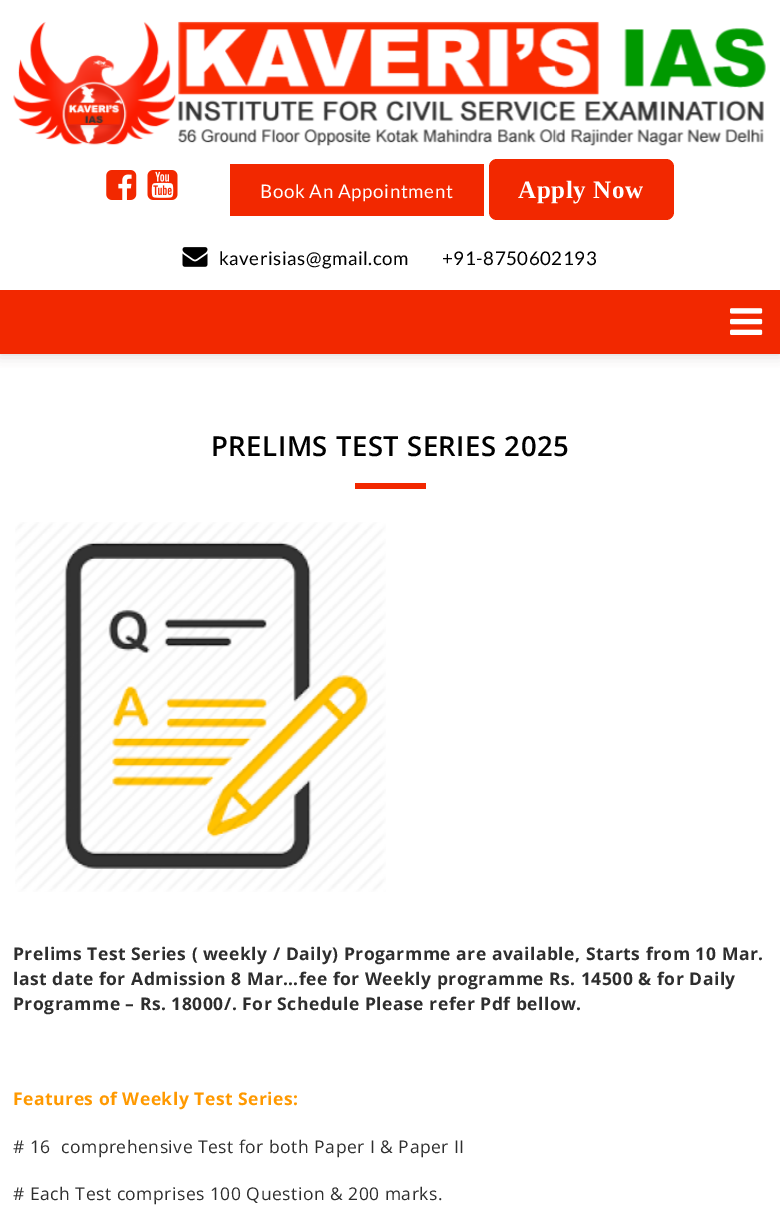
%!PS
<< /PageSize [780 1231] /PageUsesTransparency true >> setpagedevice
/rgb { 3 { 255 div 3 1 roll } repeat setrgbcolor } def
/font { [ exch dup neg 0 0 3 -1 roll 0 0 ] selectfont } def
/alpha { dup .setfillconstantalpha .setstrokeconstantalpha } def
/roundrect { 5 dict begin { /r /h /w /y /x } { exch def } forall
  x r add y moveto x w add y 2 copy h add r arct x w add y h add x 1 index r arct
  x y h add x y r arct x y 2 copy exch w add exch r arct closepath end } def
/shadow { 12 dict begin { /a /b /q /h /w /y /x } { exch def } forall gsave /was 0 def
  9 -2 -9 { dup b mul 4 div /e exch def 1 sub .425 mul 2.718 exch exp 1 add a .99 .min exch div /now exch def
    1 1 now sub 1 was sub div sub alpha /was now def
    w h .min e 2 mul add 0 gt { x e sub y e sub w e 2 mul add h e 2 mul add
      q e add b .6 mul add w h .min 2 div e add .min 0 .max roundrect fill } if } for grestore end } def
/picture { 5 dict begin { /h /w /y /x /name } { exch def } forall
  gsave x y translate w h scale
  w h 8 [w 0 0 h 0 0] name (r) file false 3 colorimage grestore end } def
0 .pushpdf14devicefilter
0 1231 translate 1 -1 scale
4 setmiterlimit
255 255 255 rgb
0 0 780 1231 rectfill
gsave
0 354 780 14 rectclip
210 206 206 rgb
0 0 780 354 0 7 1 shadow
grestore
(img_01.rgb) 13 21 753 125 picture
(img_02.rgb) 106 170 31 30 picture
(img_03.rgb) 147 170 31 30 picture
242 40 0 rgb
230 164 254 52 rectfill
489 159 185 61 8 roundrect fill
(img_04.rgb) 182 247 26 20 picture
0 290 780 64 rectfill
(img_05.rgb) 730 308 33 27 picture
355 483 71 6 rectfill
(img_06.rgb) 15 522 371 370 picture
/Lato-Regular 18.75 font
255 255 255 rgb
260 198 moveto 0.6 0 (Book An Appointment) ashow
/LiberationSerif-Bold 25 font
518 198 moveto 0.6 0 (Apply Now) ashow
/Lato-Regular 18.75 font
0 0 0 rgb
219 265 moveto 0.5 0 (kaverisias@gmail.com) ashow
442 265 moveto 0.5 0 (+91-8750602193) ashow
/OpenSans-SemiBold 27.5 font
211 456 moveto 0.5 0 (PRELIMS TEST SERIES 2025) ashow
/OpenSans-Bold 17.5 font
46 46 46 rgb
13 960 moveto 0.5 0 (Prelims Test Series \( weekly / Daily\) Progarmme are available, Starts from 10 Mar.) ashow
13 985 moveto 0.5 0 (last date for Admission 8 Mar…fee for Weekly programme Rs. 14500 & for Daily) ashow
13 1010 moveto 0.5 0 (Programme – Rs. 18000/. For Schedule Please refer Pdf bellow.) ashow
255 153 0 rgb
13 1105 moveto 0.5 0 (Features of Weekly Test Series:) ashow
/OpenSans-Regular 17.5 font
46 46 46 rgb
13 1153 moveto 0.5 0 (# 16  comprehensive Test for both Paper I & Paper II) ashow
13 1200 moveto 0.5 0 (# Each Test comprises 100 Question & 200 marks.) ashow
.poppdf14devicefilter showpage
